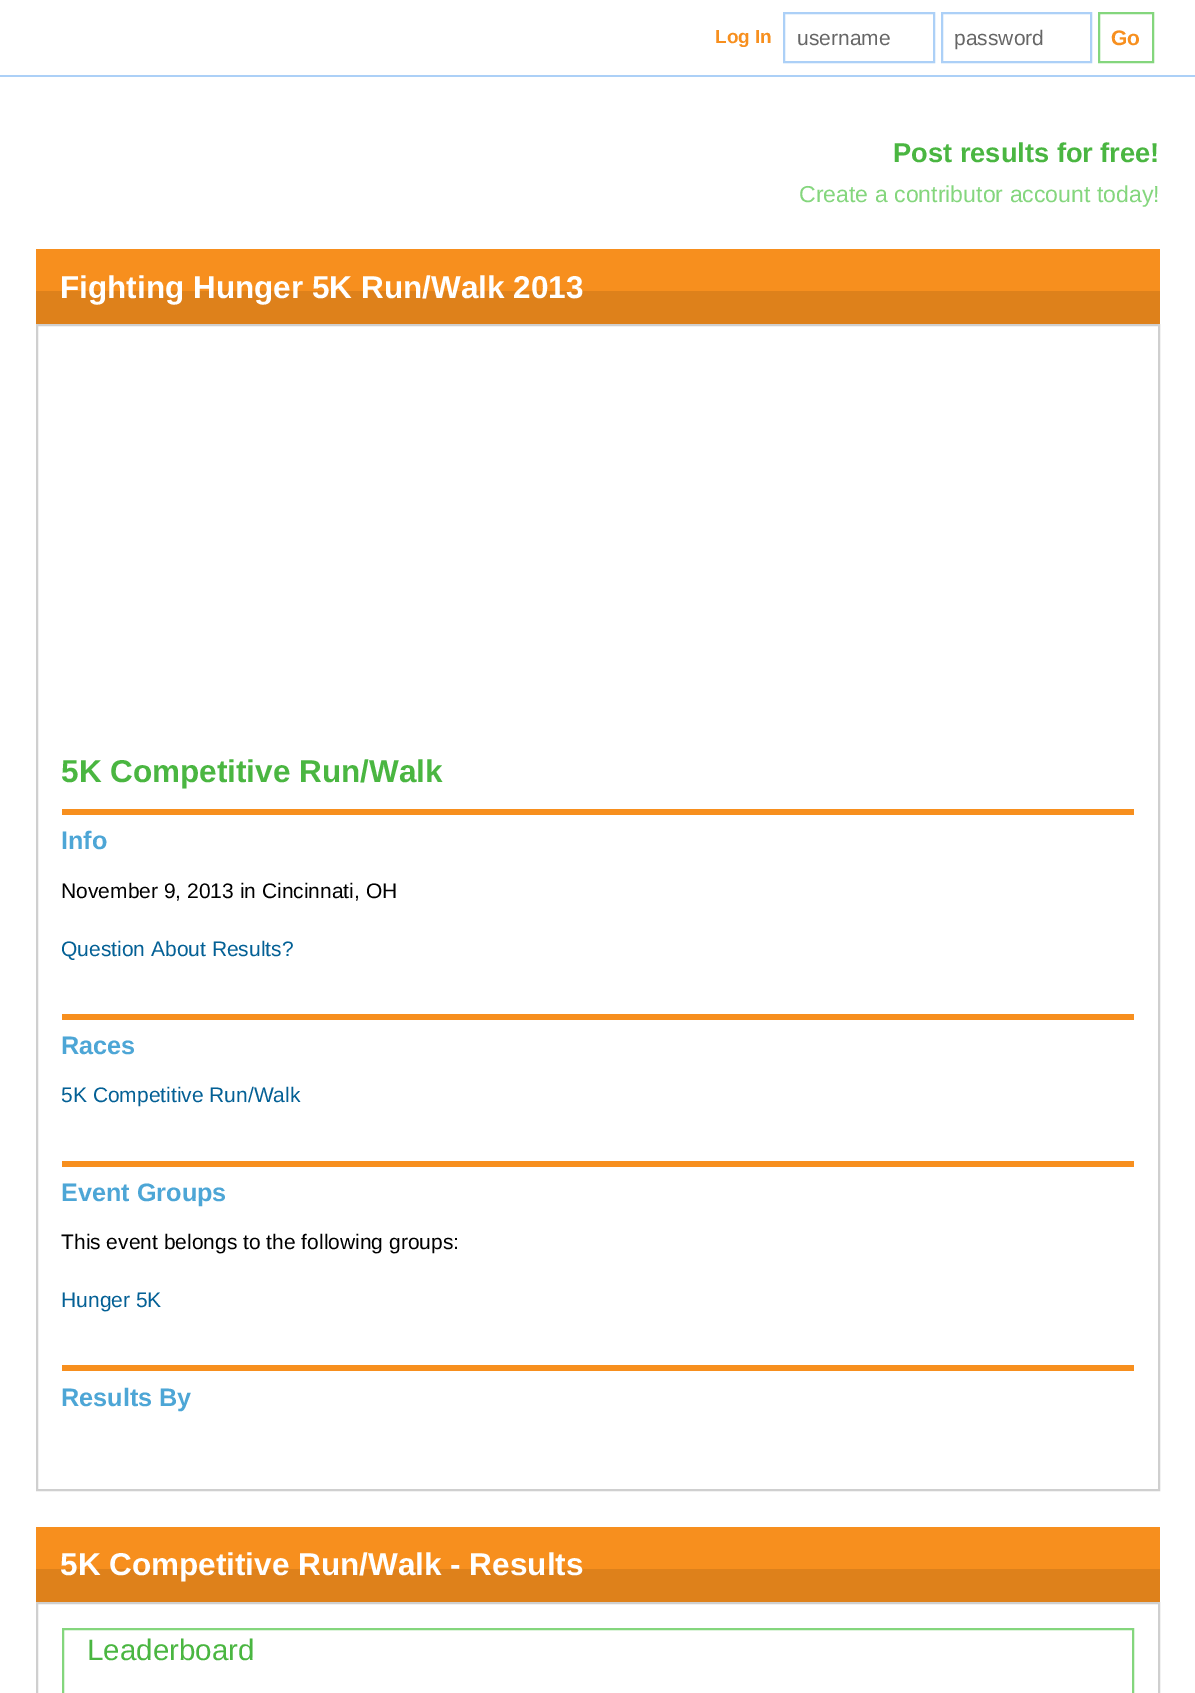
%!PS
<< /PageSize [1195 1693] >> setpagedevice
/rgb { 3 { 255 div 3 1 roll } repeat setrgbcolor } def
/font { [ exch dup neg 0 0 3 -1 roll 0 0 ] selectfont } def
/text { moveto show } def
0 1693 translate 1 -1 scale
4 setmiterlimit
255 255 255 rgb
0 0 1195 1693 rectfill
172 208 247 rgb
0 75 1195 2 rectfill
2 setlinewidth
784 13 150 49 rectstroke
942 13 149 49 rectstroke
132 214 125 rgb
1099 13 54 49 rectstroke
247 143 30 rgb
36 249 1124 42 rectfill
222 129 27 rgb
36 291 1124 33 rectfill
207 207 207 rgb
37 325 1122 1165 rectstroke
247 143 30 rgb
62 809 1072 6 rectfill
62 1014 1072 6 rectfill
62 1161 1072 6 rectfill
62 1365 1072 6 rectfill
36 1527 1124 42 rectfill
222 129 27 rgb
36 1569 1124 33 rectfill
207 207 207 rgb
37 1603 1122 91 rectstroke
132 214 125 rgb
63 1629 1070 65 rectstroke
/LiberationSans-Bold 19 font
247 143 30 rgb
(Log In) 715 43 text
/LiberationSans-Regular 21 font
102 102 102 rgb
(username) 797 45 text
(password) 954 45 text
/LiberationSans-Bold 21 font
247 143 30 rgb
(Go) 1111 45 text
/LiberationSans-Bold 27.25 font
74 182 65 rgb
(Post results for free!) 893 162 text
/LiberationSans-Regular 23.1 font
132 214 125 rgb
(Create a contributor account today!) 799 202 text
/LiberationSans-Bold 31.5 font
255 255 255 rgb
(Fighting Hunger 5K Run/Walk 2013) 60 298 text
74 182 65 rgb
(5K Competitive Run/Walk) 61 782 text
/LiberationSans-Bold 25.25 font
77 166 214 rgb
(Info) 61 849 text
/LiberationSans-Regular 21 font
0 0 0 rgb
(November 9, 2013 in Cincinnati, OH) 61 898 text
3 96 149 rgb
(Question About Results?) 61 956 text
/LiberationSans-Bold 25.25 font
77 166 214 rgb
(Races) 61 1054 text
/LiberationSans-Regular 21 font
3 96 149 rgb
(5K Competitive Run/Walk) 61 1102 text
/LiberationSans-Bold 25.25 font
77 166 214 rgb
(Event Groups) 61 1201 text
/LiberationSans-Regular 21 font
0 0 0 rgb
(This event belongs to the following groups:) 61 1249 text
3 96 149 rgb
(Hunger 5K) 61 1307 text
/LiberationSans-Bold 25.25 font
77 166 214 rgb
(Results By) 61 1406 text
/LiberationSans-Bold 31.5 font
255 255 255 rgb
(5K Competitive Run/Walk - Results) 60 1575 text
/LiberationSans-Regular 29.5 font
74 182 65 rgb
(Leaderboard) 87 1660 text
showpage
